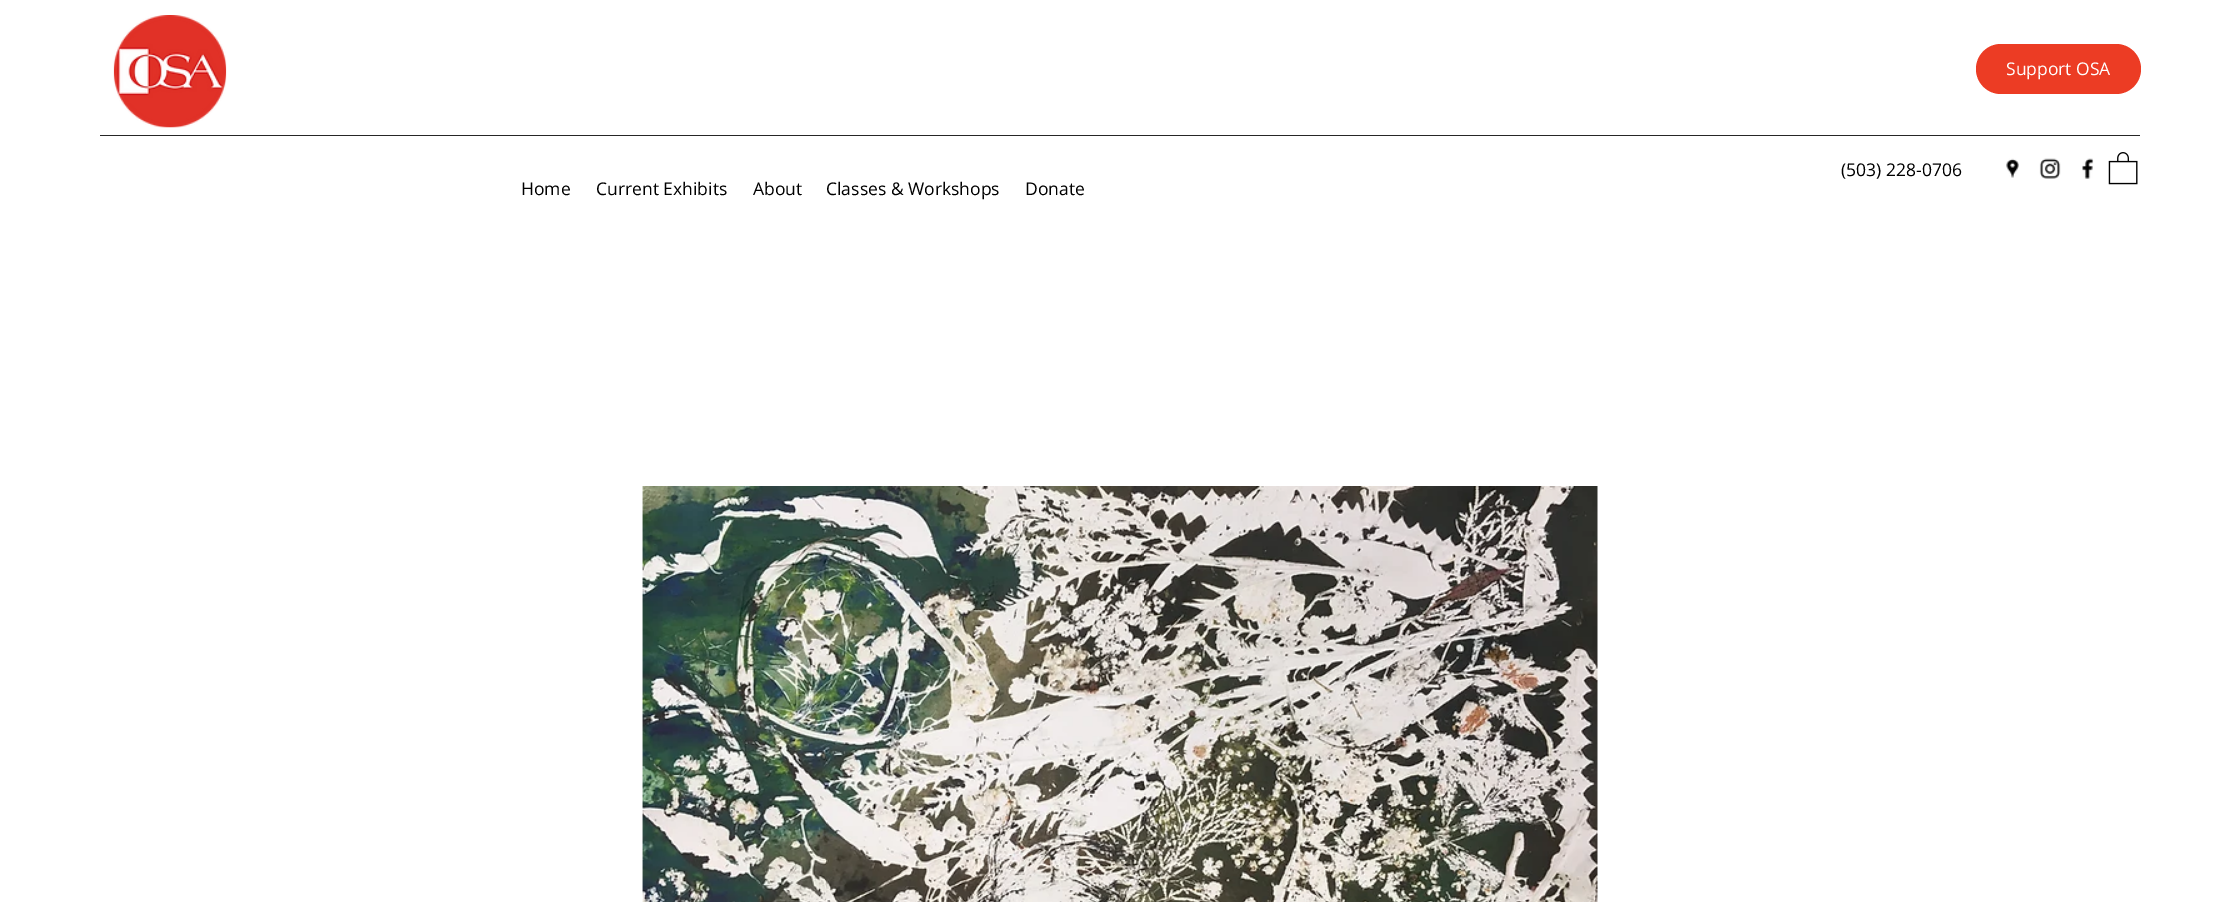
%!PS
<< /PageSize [2240 902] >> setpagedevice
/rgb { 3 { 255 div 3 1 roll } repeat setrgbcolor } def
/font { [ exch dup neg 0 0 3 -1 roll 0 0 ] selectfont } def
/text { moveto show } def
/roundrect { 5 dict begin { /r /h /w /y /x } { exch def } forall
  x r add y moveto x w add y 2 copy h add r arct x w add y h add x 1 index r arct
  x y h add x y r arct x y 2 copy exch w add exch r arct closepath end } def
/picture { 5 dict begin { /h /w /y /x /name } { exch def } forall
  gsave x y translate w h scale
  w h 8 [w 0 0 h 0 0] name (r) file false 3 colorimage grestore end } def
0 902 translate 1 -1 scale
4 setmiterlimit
255 255 255 rgb
0 0 2240 902 rectfill
(img_01.rgb) 113 15 114 113 picture
236 60 36 rgb
1976 44 165 50 25 roundrect fill
38 38 38 rgb
100 135 2040 1 rectfill
(img_02.rgb) 2006 158 13 20 picture
(img_03.rgb) 2039 158 22 21 picture
(img_04.rgb) 2082 158 12 21 picture
(img_05.rgb) 2108 152 30 33 picture
(img_06.rgb) 642 486 956 416 picture
/OpenSans-Regular 17.5 font
255 255 255 rgb
(Support OSA) 2006 75 text
0 0 0 rgb
(\(503\) 228-0706) 1841 176 text
(Home) 521 195 text
(Current Exhibits) 596 195 text
(About) 753 195 text
(Classes & Workshops) 826 195 text
(Donate) 1025 195 text
showpage
